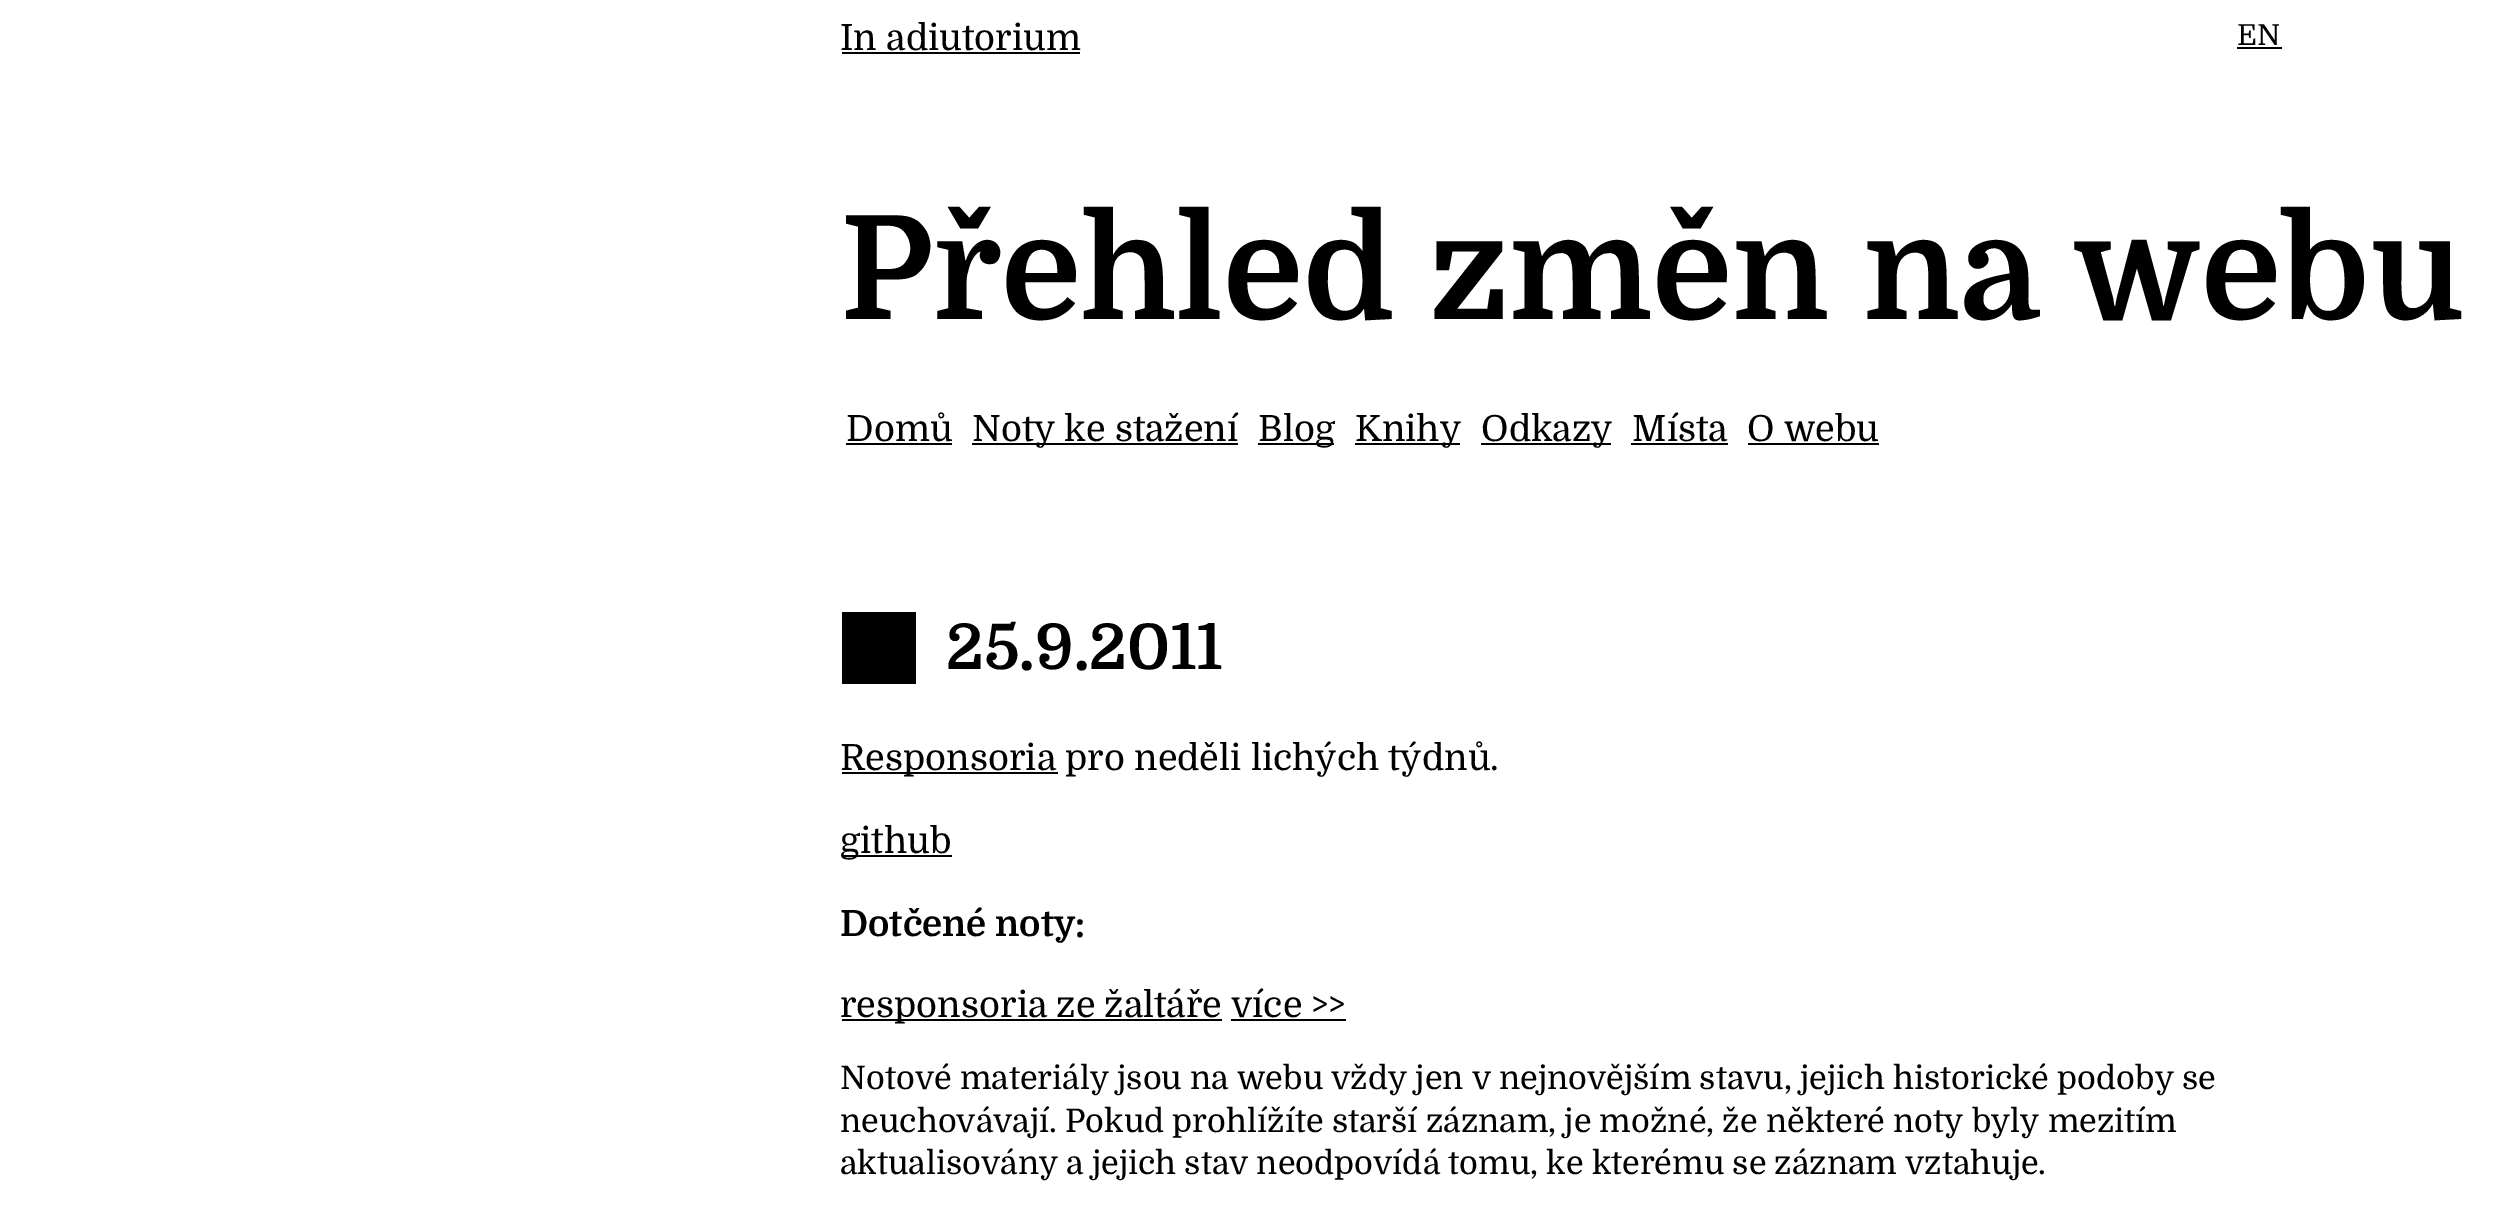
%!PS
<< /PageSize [2508 1213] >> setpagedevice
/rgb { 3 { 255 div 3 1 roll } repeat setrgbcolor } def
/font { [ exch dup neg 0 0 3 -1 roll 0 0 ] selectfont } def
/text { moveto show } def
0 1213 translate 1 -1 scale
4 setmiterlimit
255 255 255 rgb
0 0 2508 1213 rectfill
0 0 0 rgb
842 52 238 2 rectfill
2237 47 45 2 rectfill
846 443 106 2 rectfill
972 443 266 2 rectfill
1258 443 76 2 rectfill
1355 443 105 2 rectfill
1481 443 130 2 rectfill
1631 443 97 2 rectfill
1748 443 131 2 rectfill
842 612 74 72 rectfill
842 772 216 2 rectfill
842 855 110 2 rectfill
842 1019 380 2 rectfill
1231 1019 115 2 rectfill
/Domine-Regular 36 font
(In adiutorium) 840 50 text
/Domine-Regular 29 font
(EN) 2237 45 text
/Domine-Bold 144 font
(Přehled změn na webu) 840 319 text
/Domine-Regular 36 font
(Domů) 846 441 text
(Noty ke stažení) 972 441 text
(Blog) 1258 441 text
(Knihy) 1355 441 text
(Odkazy) 1481 441 text
(Místa) 1632 441 text
(O webu) 1747 441 text
/Domine-Bold 63 font
(25.9.2011) 946 669 text
/Domine-Regular 36 font
(Responsoria pro neděli lichých týdnů.) 840 770 text
(github) 840 853 text
/Domine-Bold 36 font
(Dotčené noty:) 840 936 text
/Domine-Regular 36 font
(responsoria ze žaltáře více >>) 840 1017 text
/Domine-Regular 32.4 font
(Notové materiály jsou na webu vždy jen v nejnovějším stavu, jejich historické podoby se) 840 1089 text
(neuchovávají. Pokud prohlížíte starší záznam, je možné, že některé noty byly mezitím) 840 1132 text
(aktualisovány a jejich stav neodpovídá tomu, ke kterému se záznam vztahuje.) 840 1174 text
showpage
